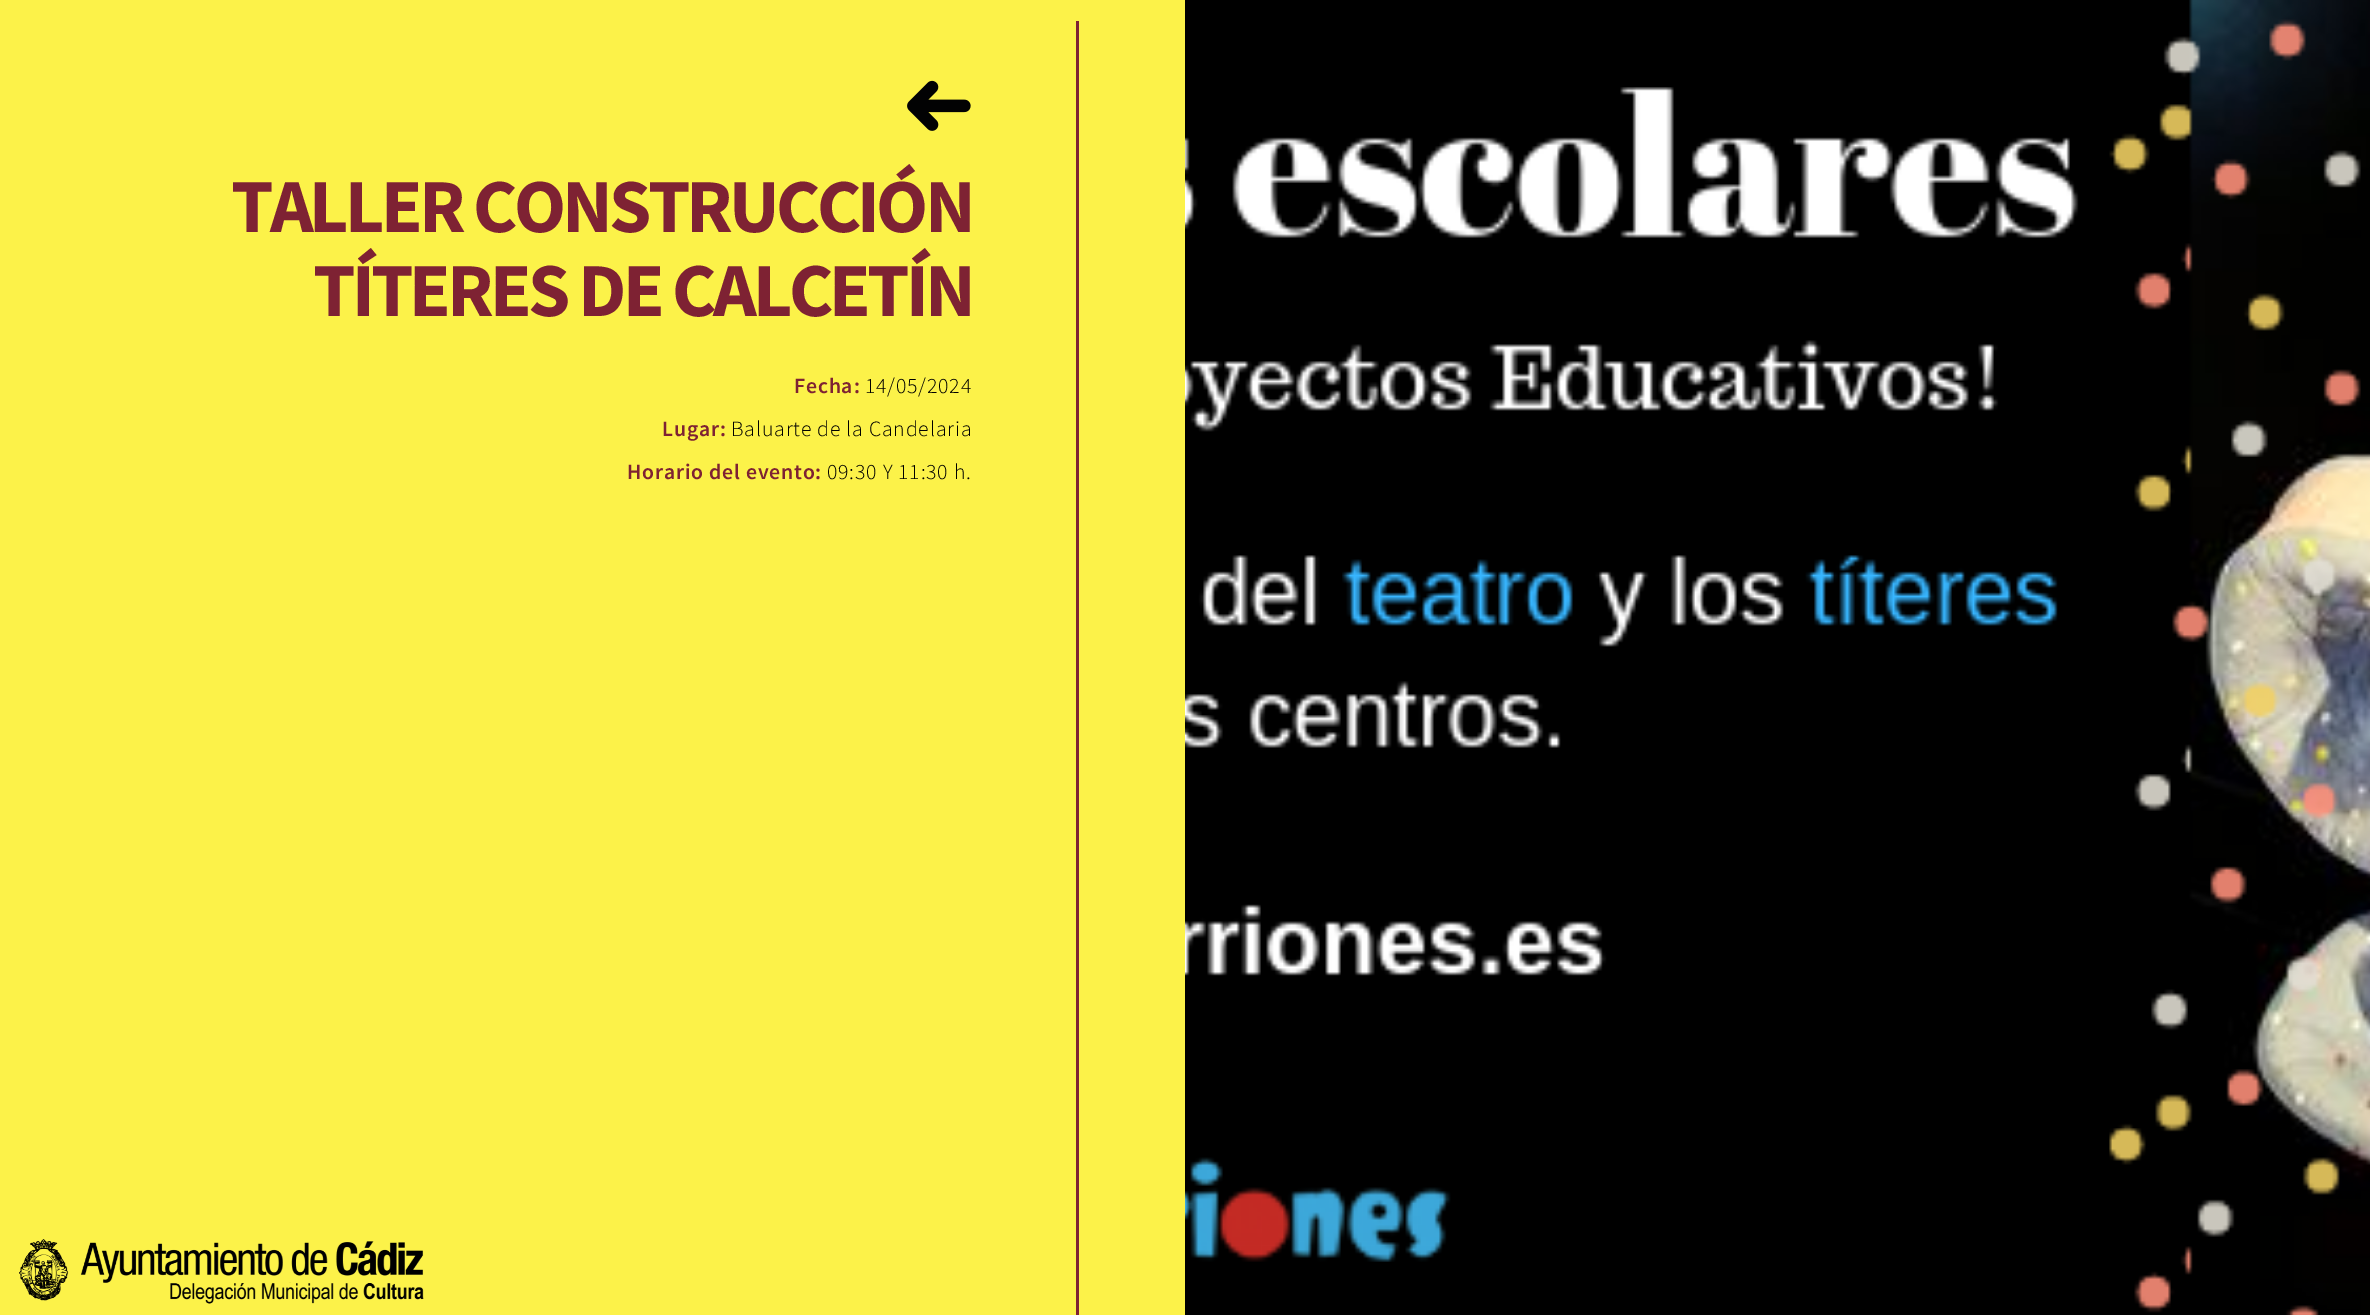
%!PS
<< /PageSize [2370 1315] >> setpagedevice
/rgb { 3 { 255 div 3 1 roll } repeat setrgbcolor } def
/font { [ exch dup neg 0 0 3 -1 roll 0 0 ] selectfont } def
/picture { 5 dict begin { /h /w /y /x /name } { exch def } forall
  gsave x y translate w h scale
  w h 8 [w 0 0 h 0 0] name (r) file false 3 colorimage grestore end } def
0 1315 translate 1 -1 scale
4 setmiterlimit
252 242 73 rgb
0 0 2370 1315 rectfill
(img_01.rgb) 907 80 64 51 picture
126 34 51 rgb
1076 21 3 1294 rectfill
(img_02.rgb) 1185 0 1185 1315 picture
(img_03.rgb) 19 1239 405 65 picture
/SourceSansPro-Bold 76.25 font
231 232 moveto -3.8 0 (TALLER CONSTRUCCIÓN) ashow
313 316 moveto -3.8 0 (TÍTERES DE CALCETÍN) ashow
/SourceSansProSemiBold-SemiBold 21.75 font
794 393 moveto 0.8 0 (Fecha:) ashow
/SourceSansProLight-Light 21.75 font
0 0 0 rgb
865 393 moveto 0.8 0 (14/05/2024) ashow
/SourceSansProSemiBold-SemiBold 21.75 font
126 34 51 rgb
662 436 moveto 0.8 0 (Lugar:) ashow
/SourceSansProLight-Light 21.75 font
0 0 0 rgb
731 436 moveto 0.8 0 (Baluarte de la Candelaria) ashow
/SourceSansProSemiBold-SemiBold 21.75 font
126 34 51 rgb
627 479 moveto 0.8 0 (Horario del evento:) ashow
/SourceSansProLight-Light 21.75 font
0 0 0 rgb
827 479 moveto 0.8 0 (09:30 Y 11:30 h.) ashow
showpage
